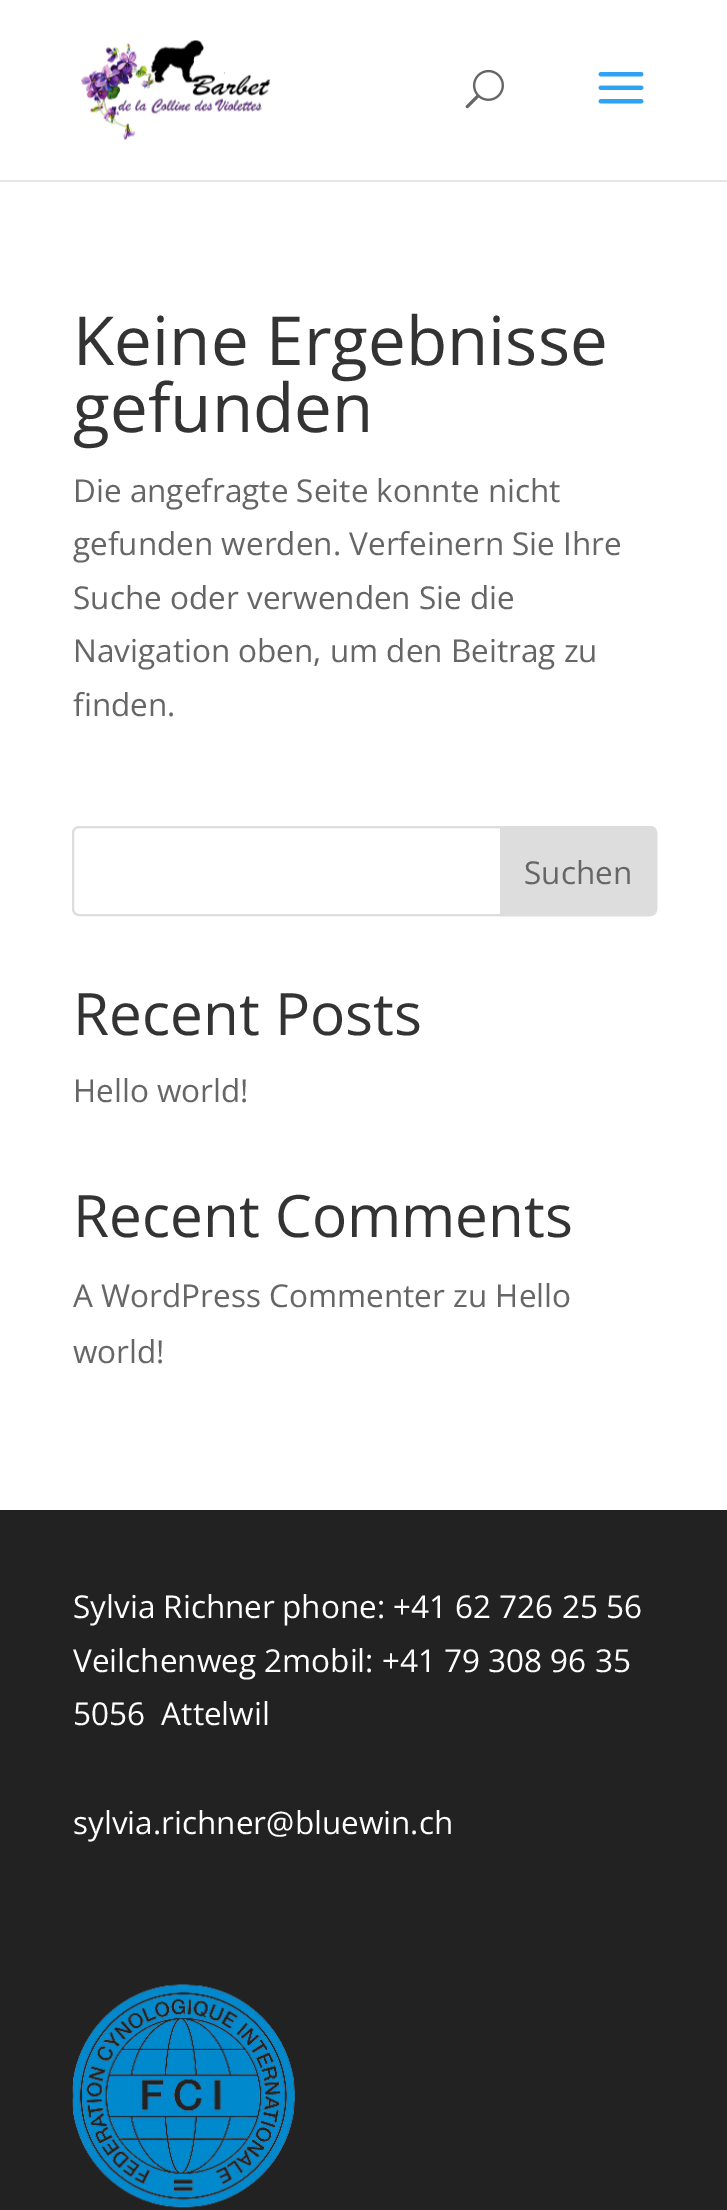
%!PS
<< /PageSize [727 2210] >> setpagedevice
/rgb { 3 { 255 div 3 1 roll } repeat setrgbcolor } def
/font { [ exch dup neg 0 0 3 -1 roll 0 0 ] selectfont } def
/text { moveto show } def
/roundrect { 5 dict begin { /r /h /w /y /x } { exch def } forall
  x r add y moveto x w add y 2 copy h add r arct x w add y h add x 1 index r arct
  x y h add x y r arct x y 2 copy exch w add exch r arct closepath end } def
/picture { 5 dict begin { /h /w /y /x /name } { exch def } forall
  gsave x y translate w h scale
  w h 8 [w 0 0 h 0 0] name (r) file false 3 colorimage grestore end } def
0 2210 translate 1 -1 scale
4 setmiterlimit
255 255 255 rgb
0 0 727 2210 rectfill
230 230 230 rgb
0 180 727 2 rectfill
(img_01.rgb) 81 40 189 100 picture
(img_02.rgb) 465 69 39 40 picture
(img_03.rgb) 598 72 46 32 picture
221 221 221 rgb
2 setlinewidth
73 827 583 88 6 roundrect stroke
501 827 moveto 149 0 rlineto 3.5 0 6 2.5 6 6 rcurveto 0 76 rlineto 0 3.5 -2.5 6 -6 6 rcurveto -149 0 rlineto closepath gsave fill grestore
stroke
34 34 34 rgb
0 1510 727 700 rectfill
(img_04.rgb) 72 1984 223 224 picture
/OpenSans-Regular 67.5 font
51 51 51 rgb
(Keine Ergebnisse) 73 365 text
(gefunden) 73 432 text
/OpenSans-Regular 31.5 font
102 102 102 rgb
(Die angefragte Seite konnte nicht) 73 502 text
(gefunden werden. Verfeinern Sie Ihre) 73 555 text
(Suche oder verwenden Sie die) 73 609 text
(Navigation oben, um den Beitrag zu) 73 662 text
(finden.) 73 716 text
(Suchen) 524 884 text
/OpenSans-Regular 58.5 font
51 51 51 rgb
(Recent Posts) 73 1035 text
/OpenSans-Regular 31.5 font
102 102 102 rgb
(Hello world!) 73 1102 text
/OpenSans-Regular 58.5 font
51 51 51 rgb
(Recent Comments) 73 1237 text
/OpenSans-Regular 31.5 font
102 102 102 rgb
(A WordPress Commenter zu Hello) 73 1307 text
(world!) 73 1363 text
255 255 255 rgb
(Sylvia Richner) 73 1618 text
(Veilchenweg 2mobil: +41 79 308 96 35) 73 1672 text
(5056  Attelwil) 73 1725 text
(phone: +41 62 726 25 56) 282 1618 text
(sylvia.richner@bluewin.ch) 73 1834 text
showpage
